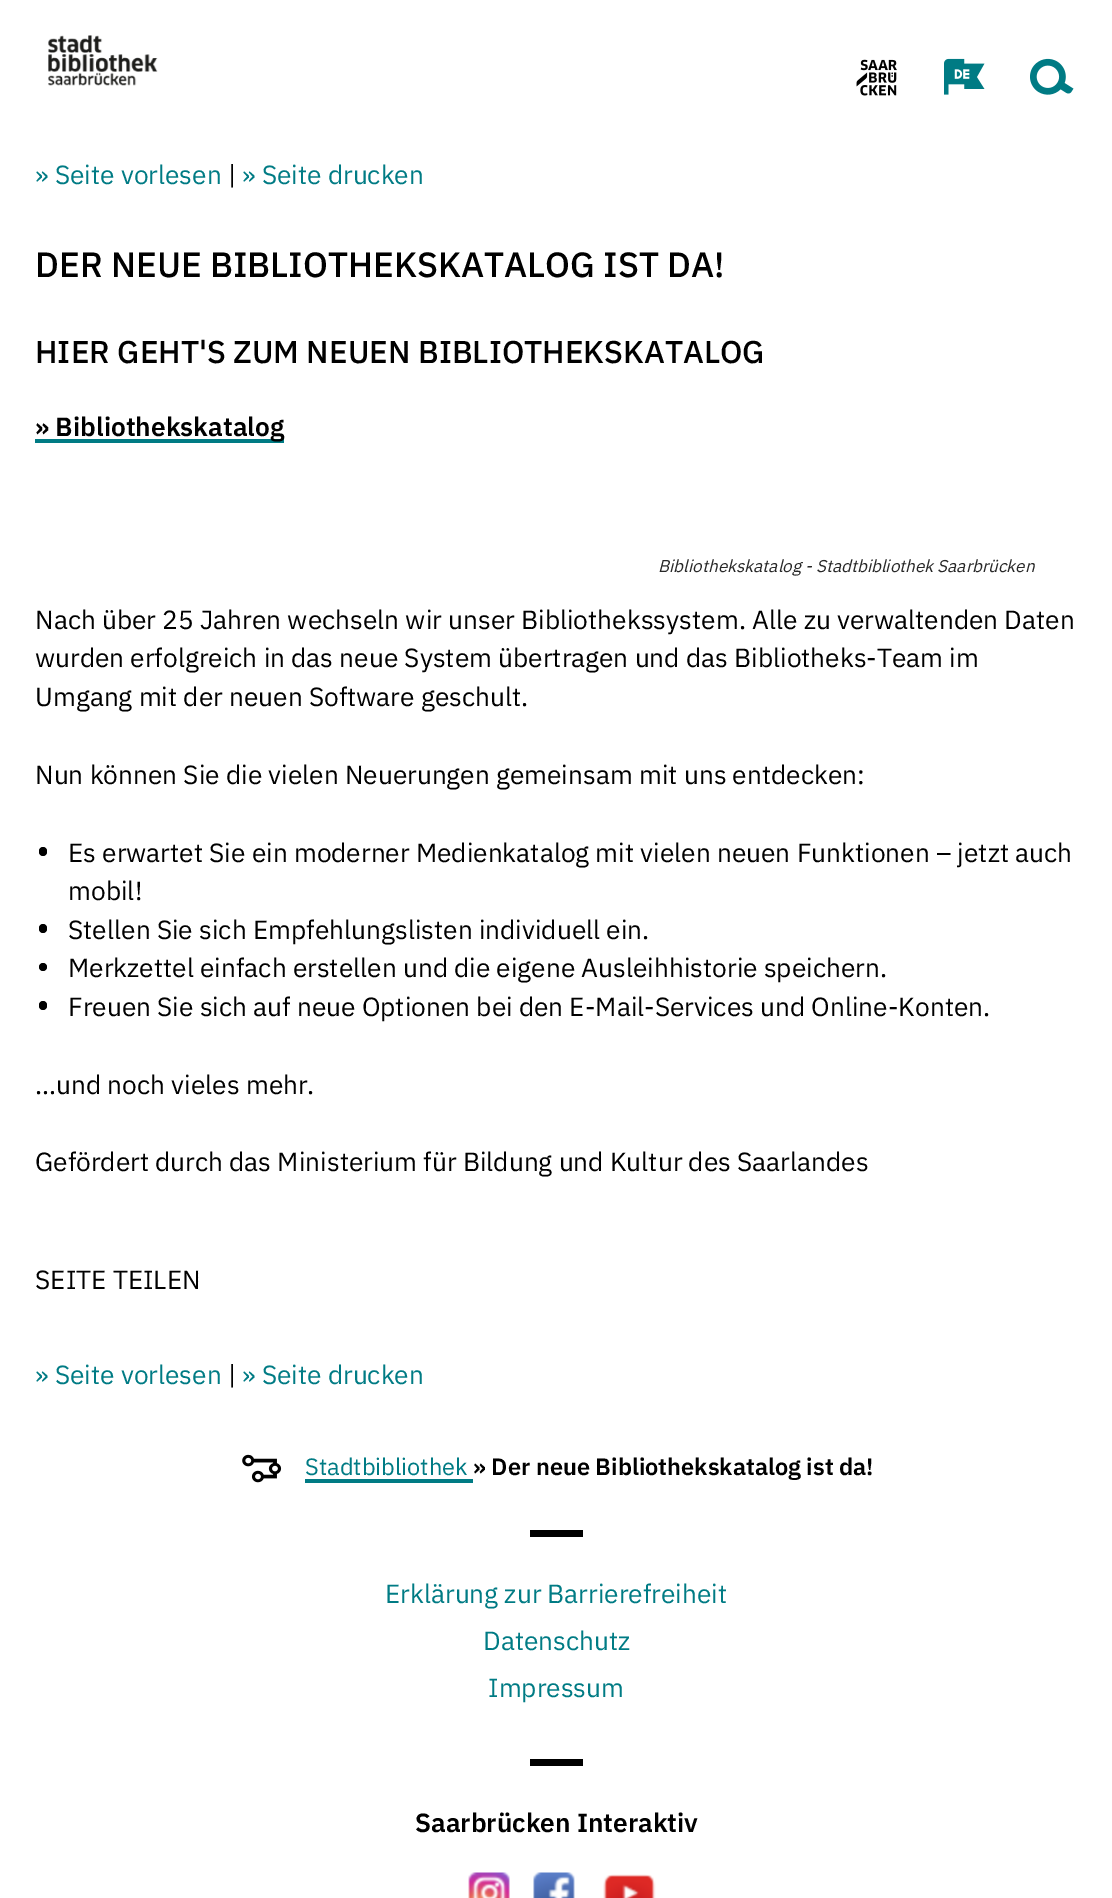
%!PS
<< /PageSize [1112 1898] >> setpagedevice
/rgb { 3 { 255 div 3 1 roll } repeat setrgbcolor } def
/font { [ exch dup neg 0 0 3 -1 roll 0 0 ] selectfont } def
/text { moveto show } def
/circle { newpath 0 360 arc closepath } def
/roundrect { 5 dict begin { /r /h /w /y /x } { exch def } forall
  x r add y moveto x w add y 2 copy h add r arct x w add y h add x 1 index r arct
  x y h add x y r arct x y 2 copy exch w add exch r arct closepath end } def
/picture { 5 dict begin { /h /w /y /x /name } { exch def } forall
  gsave x y translate w h scale
  w h 8 [w 0 0 h 0 0] name (r) file false 3 colorimage grestore end } def
0 1898 translate 1 -1 scale
4 setmiterlimit
255 255 255 rgb
0 0 1112 1898 rectfill
(img_01.rgb) 48 35 110 51 picture
(img_02.rgb) 856 59 41 37 picture
(img_03.rgb) 944 58 41 37 picture
(img_04.rgb) 1030 58 44 37 picture
0 123 132 rgb
35 439 249 4 rectfill
0 0 0 rgb
39 847 8 9 4 roundrect fill
39 924 8 9 4 roundrect fill
43 967 4 circle fill
39 1001 8 9 4 roundrect fill
(img_05.rgb) 242 1454 40 29 picture
0 123 132 rgb
305 1479 168 4 rectfill
0 0 0 rgb
530 1530 53 7 rectfill
530 1759 53 7 rectfill
(img_06.rgb) 468 1872 42 26 picture
(img_07.rgb) 533 1872 42 26 picture
(img_08.rgb) 603 1874 53 24 picture
/IBMPlexSans-Regular 26.25 font
0 123 132 rgb
(» Seite vorlesen) 35 184 text
0 0 0 rgb
(|) 228 184 text
0 123 132 rgb
(» Seite drucken) 242 184 text
/IBMPlexSans-Medium 35 font
0 0 0 rgb
(DER NEUE BIBLIOTHEKSKATALOG IST DA!) 35 277 text
/IBMPlexSans-Medium 31.5 font
(HIER GEHT'S ZUM NEUEN BIBLIOTHEKSKATALOG) 35 363 text
/IBMPlexSans-SemiBold 26.25 font
(» Bibliothekskatalog) 35 436 text
/IBMPlexSans-Italic 17.1 font
40 40 40 rgb
(Bibliothekskatalog - Stadtbibliothek Saarbrücken) 658 572 text
/IBMPlexSans-Regular 26.25 font
0 0 0 rgb
(Nach über 25 Jahren wechseln wir unser Bibliothekssystem. Alle zu verwaltenden Daten) 35 629 text
(wurden erfolgreich in das neue System übertragen und das Bibliotheks-Team im) 35 667 text
(Umgang mit der neuen Software geschult.) 35 706 text
(Nun können Sie die vielen Neuerungen gemeinsam mit uns entdecken:) 35 784 text
(Es erwartet Sie ein moderner Medienkatalog mit vielen neuen Funktionen – jetzt auch) 68 862 text
(mobil!) 68 900 text
(Stellen Sie sich Empfehlungslisten individuell ein.) 68 939 text
(Merkzettel einfach erstellen und die eigene Ausleihhistorie speichern.) 68 977 text
(Freuen Sie sich auf neue Optionen bei den E-Mail-Services und Online-Konten.) 68 1016 text
(…und noch vieles mehr.) 35 1094 text
(Gefördert durch das Ministerium für Bildung und Kultur des Saarlandes) 35 1171 text
(SEITE TEILEN) 35 1289 text
0 123 132 rgb
(» Seite vorlesen) 35 1384 text
0 0 0 rgb
(|) 228 1384 text
0 123 132 rgb
(» Seite drucken) 242 1384 text
/IBMPlexSans-Regular 23.6 font
(Stadtbibliothek) 305 1475 text
/IBMPlexSans-SemiBold 23.6 font
0 0 0 rgb
(» Der neue Bibliothekskatalog ist da!) 473 1475 text
/IBMPlexSans-Regular 26.25 font
0 123 132 rgb
(Erklärung zur Barrierefreiheit) 385 1603 text
(Datenschutz) 483 1650 text
(Impressum) 488 1697 text
/IBMPlexSans-SemiBold 26.25 font
0 0 0 rgb
(Saarbrücken Interaktiv) 415 1832 text
showpage
